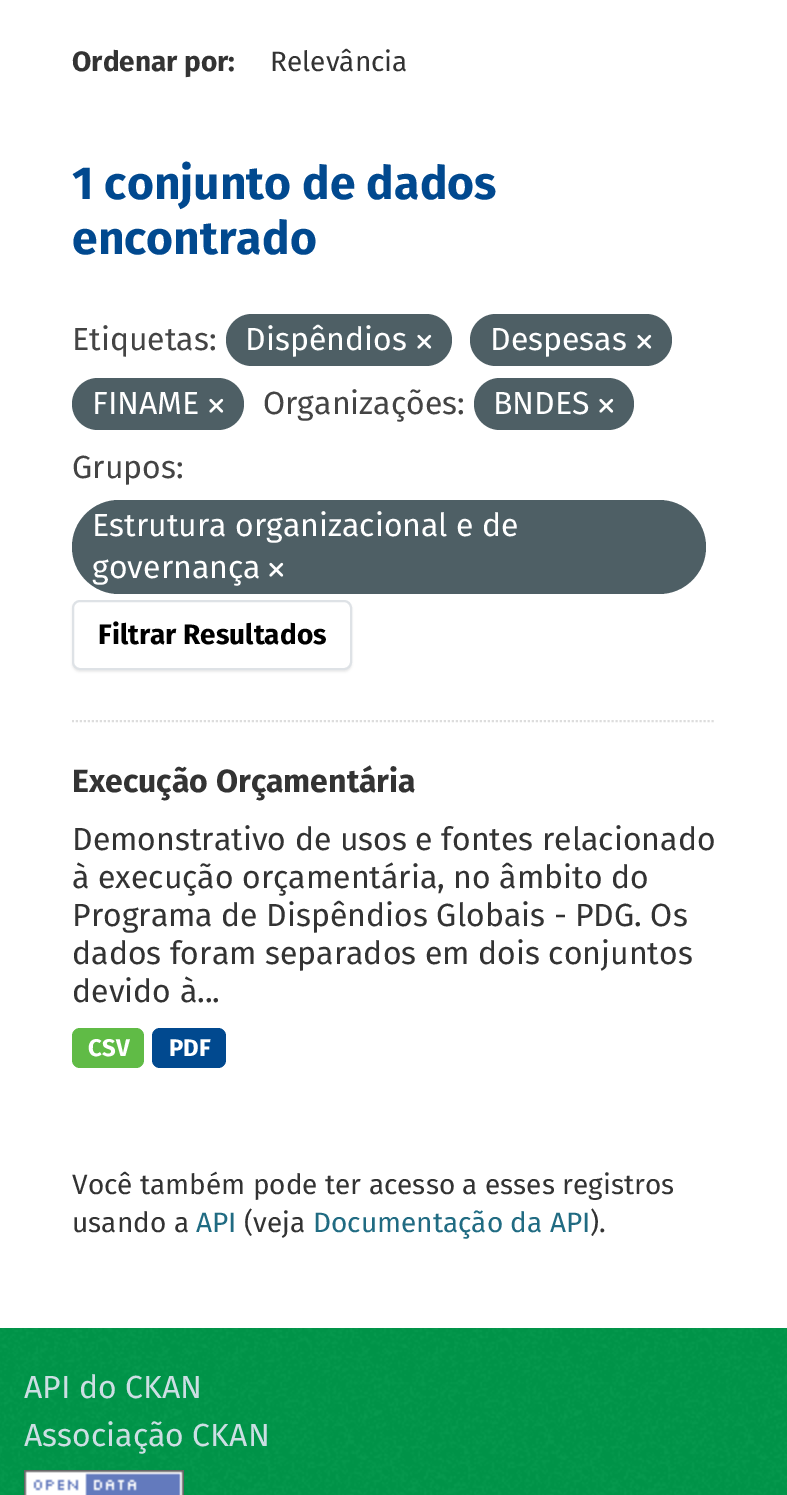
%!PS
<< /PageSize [787 1495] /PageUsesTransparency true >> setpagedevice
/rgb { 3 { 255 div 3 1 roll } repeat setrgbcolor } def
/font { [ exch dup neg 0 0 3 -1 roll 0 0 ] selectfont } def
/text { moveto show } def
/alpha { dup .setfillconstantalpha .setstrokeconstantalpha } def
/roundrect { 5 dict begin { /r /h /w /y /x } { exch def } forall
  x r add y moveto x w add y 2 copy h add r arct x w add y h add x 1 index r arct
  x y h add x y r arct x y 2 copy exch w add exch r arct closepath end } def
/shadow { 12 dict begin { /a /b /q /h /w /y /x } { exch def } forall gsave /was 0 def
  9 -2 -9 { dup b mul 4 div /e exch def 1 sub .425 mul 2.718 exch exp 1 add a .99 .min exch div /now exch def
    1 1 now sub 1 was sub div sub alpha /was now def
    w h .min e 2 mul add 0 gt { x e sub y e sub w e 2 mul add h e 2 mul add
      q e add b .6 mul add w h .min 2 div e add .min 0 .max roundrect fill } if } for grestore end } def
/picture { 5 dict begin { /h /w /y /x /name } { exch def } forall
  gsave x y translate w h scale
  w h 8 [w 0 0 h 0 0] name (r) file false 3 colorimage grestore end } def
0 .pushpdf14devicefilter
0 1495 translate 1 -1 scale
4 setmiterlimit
255 255 255 rgb
0 0 787 1495 rectfill
221 221 221 rgb
2 setlinewidth
[2 2] 0 setdash
72 721 moveto 644 0 rlineto stroke
78 95 101 rgb
226 314 226 52 26 roundrect fill
(img_01.rgb) 417 334 15 15 picture
470 314 202 52 26 roundrect fill
(img_01.rgb) 637 334 15 15 picture
72 378 172 52 26 roundrect fill
(img_01.rgb) 209 398 15 15 picture
474 378 160 52 26 roundrect fill
(img_01.rgb) 599 398 15 15 picture
72 500 634 94 47 roundrect fill
(img_01.rgb) 269 562 15 15 picture
0 0 0 rgb
72 602 280 70 8 1 0.07 shadow
255 255 255 rgb
73 601 278 68 7 roundrect gsave fill grestore
222 226 230 rgb
[] 0 setdash
stroke
96 187 70 rgb
72 1028 72 40 8 roundrect fill
1 73 143 rgb
152 1028 74 40 8 roundrect fill
0 152 74 rgb
0 1328 787 167 rectfill
(img_02.rgb) 0 1328 787 167 picture
(img_03.rgb) 24 1470 160 25 picture
/FiraSans-Bold 28 font
51 51 51 rgb
(Ordenar por:) 72 71 text
/FiraSans-Regular 28 font
(Relevância) 270 71 text
/FiraSans-Bold 46.25 font
1 73 143 rgb
(1 conjunto de dados) 72 199 text
(encontrado) 72 254 text
/FiraSans-Regular 32 font
68 68 68 rgb
(Etiquetas:) 72 350 text
255 255 255 rgb
(Dispêndios) 245 350 text
(Despesas) 490 350 text
(FINAME) 92 414 text
68 68 68 rgb
(Organizações:) 263 414 text
255 255 255 rgb
(BNDES) 493 414 text
68 68 68 rgb
(Grupos:) 72 478 text
255 255 255 rgb
(Estrutura organizacional e de) 92 536 text
(governança) 92 578 text
/FiraSans-Bold 28 font
0 0 0 rgb
(Filtrar Resultados) 98 644 text
/FiraSans-Bold 32 font
51 51 51 rgb
(Execução Orçamentária) 72 792 text
/FiraSans-Regular 32 font
(Demonstrativo de usos e fontes relacionado) 72 850 text
(à execução orçamentária, no âmbito do) 72 888 text
(Programa de Dispêndios Globais - PDG. Os) 72 926 text
(dados foram separados em dois conjuntos) 72 964 text
(devido à...) 72 1002 text
/FiraSans-Bold 24 font
255 255 255 rgb
(CSV) 88 1056 text
(PDF) 169 1056 text
/FiraSans-Regular 28 font
51 51 51 rgb
(Você também pode ter acesso a esses registros) 72 1194 text
(usando a) 72 1232 text
32 107 130 rgb
(API) 196 1232 text
51 51 51 rgb
(\(veja) 244 1232 text
32 107 130 rgb
(Documentação da API) 313 1232 text
51 51 51 rgb
(\).) 590 1232 text
/FiraSans-Regular 32 font
204 222 227 rgb
(API do CKAN) 24 1398 text
(Associação CKAN) 24 1446 text
.poppdf14devicefilter showpage
